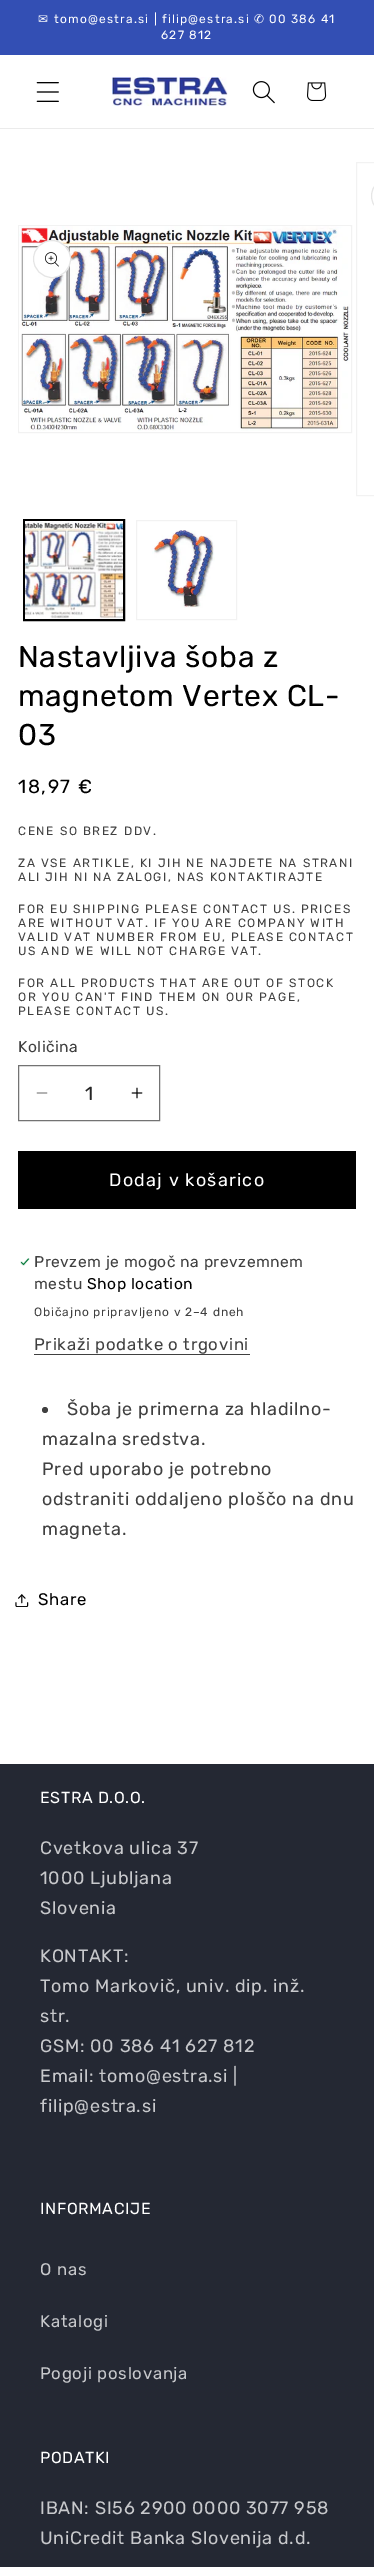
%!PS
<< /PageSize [374 2567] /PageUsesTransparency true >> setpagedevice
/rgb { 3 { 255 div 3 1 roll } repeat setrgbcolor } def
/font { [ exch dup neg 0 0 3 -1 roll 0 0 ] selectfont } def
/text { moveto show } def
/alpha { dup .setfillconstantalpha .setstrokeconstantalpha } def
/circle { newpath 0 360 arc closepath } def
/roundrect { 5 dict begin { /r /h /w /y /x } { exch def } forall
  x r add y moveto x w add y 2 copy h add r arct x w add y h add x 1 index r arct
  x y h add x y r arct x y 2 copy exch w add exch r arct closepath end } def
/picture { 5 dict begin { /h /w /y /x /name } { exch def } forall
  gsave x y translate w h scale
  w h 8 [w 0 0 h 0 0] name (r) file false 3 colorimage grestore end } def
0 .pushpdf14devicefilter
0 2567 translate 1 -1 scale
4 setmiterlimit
255 255 255 rgb
0 0 374 2567 rectfill
51 79 180 rgb
0 0 374 55 rectfill
235 235 235 rgb
0 128 374 1 rectfill
(img_01.rgb) 36 82 23 20 picture
(img_02.rgb) 112 77 116 29 picture
(img_03.rgb) 252 81 23 23 picture
(img_04.rgb) 307 82 20 19 picture
242 242 242 rgb
18.5 225.5 333 207 rectstroke
(img_05.rgb) 19 226 331 205 picture
255 255 255 rgb
52 259 19 circle fill
0.1 alpha
0 0 0 rgb
52 259 18.5 circle stroke
1 alpha
(img_06.rgb) 45 252 14 15 picture
242 242 242 rgb
356.5 162.5 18 333 rectstroke
230 230 230 rgb
371.5 177.5 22 37 18.5 roundrect stroke
0 0 0 rgb
23.5 519.5 101 101 rectstroke
24.5 520.5 99 99 rectstroke
(img_07.rgb) 25 521 98 98 picture
242 242 242 rgb
136.5 520.5 100 99 rectstroke
(img_08.rgb) 152 530 63 78 picture
(img_09.rgb) 36 1092 12 2 picture
(img_10.rgb) 131 1087 12 12 picture
115 115 115 rgb
18.5 1065.5 141 55 rectstroke
0 0 0 rgb
18 1151 338 58 rectfill
(img_11.rgb) 20 1258 10 8 picture
64 64 64 rgb
34 1354 216 1 rectfill
45 1410 3 circle fill
(img_12.rgb) 15 1594 14 13 picture
36 40 51 rgb
0 1764 374 803 rectfill
/DejaVuSans-Regular 12 font
255 255 255 rgb
38 23 moveto 1.2 0 (✉) ashow
/Rubik-Regular 12 font
54 23 moveto 1.2 0 (tomo@estra.si | filip@estra.si) ashow
/DejaVuSans-Regular 12 font
254 23 moveto 1.2 0 (✆) ashow
/Rubik-Regular 12 font
269 23 moveto 1.2 0 (00 386 41) ashow
161 39 moveto 1.2 0 (627 812) ashow
/Rubik-Regular 30 font
0 0 0 rgb
18 667 moveto 0.6 0 (Nastavljiva šoba z) ashow
18 706 moveto 0.6 0 (magnetom Vertex CL-) ashow
18 745 moveto 0.6 0 (03) ashow
/Rubik-Regular 19 font
18 793 moveto 1.55 0 (18,97 €) ashow
/Rubik-Regular 12 font
64 64 64 rgb
18 835 moveto 1.55 0 (CENE SO BREZ DDV.) ashow
18 867 moveto 1.55 0 (ZA VSE ARTIKLE, KI JIH NE NAJDETE NA STRANI) ashow
18 881 moveto 1.55 0 (ALI JIH NI NA ZALOGI, NAS KONTAKTIRAJTE) ashow
18 913 moveto 1.55 0 (FOR EU SHIPPING PLEASE CONTACT US. PRICES) ashow
18 927 moveto 1.55 0 (ARE WITHOUT VAT. IF YOU ARE COMPANY WITH) ashow
18 941 moveto 1.55 0 (VALID VAT NUMBER FROM EU, PLEASE CONTACT) ashow
18 955 moveto 1.55 0 (US AND WE WILL NOT CHARGE VAT.) ashow
18 987 moveto 1.55 0 (FOR ALL PRODUCTS THAT ARE OUT OF STOCK) ashow
18 1001 moveto 1.55 0 (OR YOU CAN'T FIND THEM ON OUR PAGE,) ashow
18 1015 moveto 1.55 0 (PLEASE CONTACT US.) ashow
/Rubik-Regular 15.6 font
18 1052 moveto 0.5 0 (Količina) ashow
/Rubik-Regular 19 font
38 38 38 rgb
(1) 85 1100 text
/Rubik-Regular 18 font
255 255 255 rgb
109 1186 moveto 1.2 0 (Dodaj v košarico) ashow
/Rubik-Regular 15.6 font
64 64 64 rgb
34 1267 moveto 0.5 0 (Prevzem je mogoč na prevzemnem) ashow
34 1289 moveto 0.5 0 (mestu) ashow
0 0 0 rgb
87 1289 moveto 0.5 0 (Shop location) ashow
/Rubik-Regular 12 font
64 64 64 rgb
34 1316 moveto 0.85 0 (Običajno pripravljeno v 2–4 dneh) ashow
/Rubik-Regular 16.75 font
34 1350 moveto 0.7 0 (Prikaži podatke o trgovini) ashow
/Rubik-Regular 18 font
67 1415 moveto 0.7 0 (Šoba je primerna za hladilno-) ashow
42 1445 moveto 0.7 0 (mazalna sredstva.) ashow
42 1475 moveto 0.7 0 (Pred uporabo je potrebno) ashow
42 1505 moveto 0.7 0 (odstraniti oddaljeno ploščo na dnu) ashow
42 1535 moveto 0.7 0 (magneta.) ashow
/Rubik-Regular 16.75 font
0 0 0 rgb
38 1605 moveto 0.7 0 (Share) ashow
/Rubik-Regular 16 font
255 255 255 rgb
40 1803 moveto 0.6 0 (ESTRA D.O.O.) ashow
/Rubik-Regular 18 font
200 201 204 rgb
40 1854 moveto 0.7 0 (Cvetkova ulica 37) ashow
40 1884 moveto 0.7 0 (1000 Ljubljana) ashow
40 1914 moveto 0.7 0 (Slovenia) ashow
40 1962 moveto 0.7 0 (KONTAKT:) ashow
40 1992 moveto 0.7 0 (Tomo Markovič, univ. dip. inž.) ashow
40 2022 moveto 0.7 0 (str.) ashow
40 2052 moveto 0.7 0 (GSM: 00 386 41 627 812) ashow
40 2082 moveto 0.7 0 (Email: tomo@estra.si |) ashow
40 2112 moveto 0.7 0 (filip@estra.si) ashow
/Rubik-Regular 16 font
255 255 255 rgb
40 2214 moveto 0.6 0 (INFORMACIJE) ashow
/Rubik-Regular 16.75 font
200 201 204 rgb
40 2275 moveto 0.7 0 (O nas) ashow
40 2327 moveto 0.7 0 (Katalogi) ashow
40 2379 moveto 0.7 0 (Pogoji poslovanja) ashow
/Rubik-Regular 16 font
255 255 255 rgb
40 2463 moveto 0.6 0 (PODATKI) ashow
/Rubik-Regular 18 font
200 201 204 rgb
40 2514 moveto 0.7 0 (IBAN: SI56 2900 0000 3077 958) ashow
40 2544 moveto 0.7 0 (UniCredit Banka Slovenija d.d.) ashow
.poppdf14devicefilter showpage
